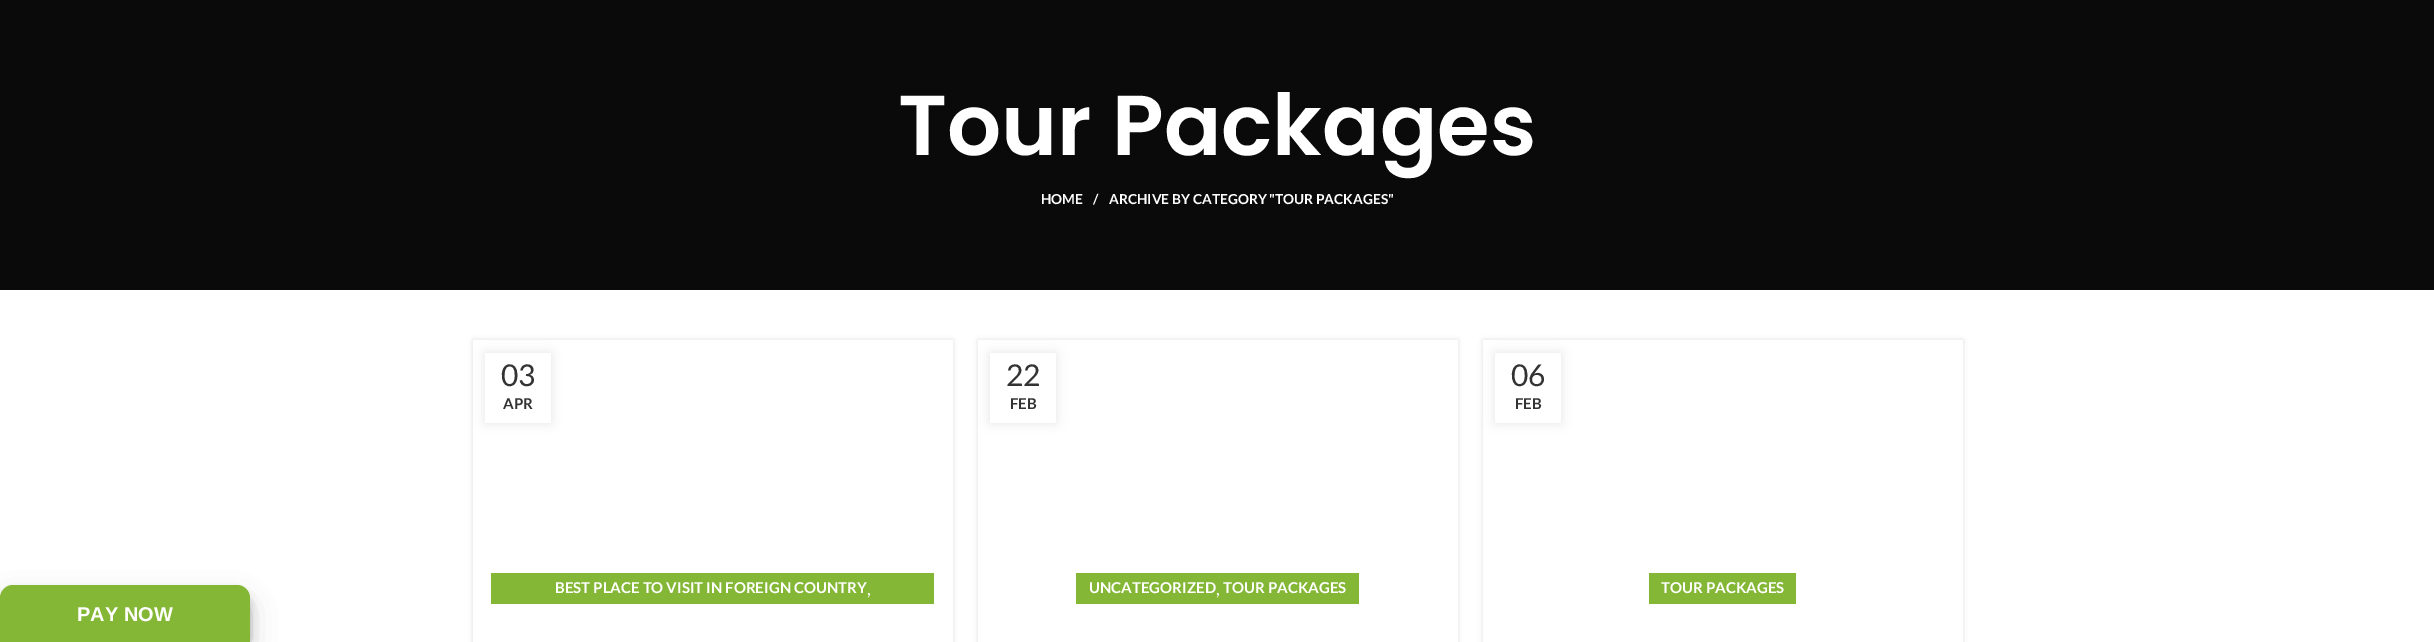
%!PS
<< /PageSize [2434 642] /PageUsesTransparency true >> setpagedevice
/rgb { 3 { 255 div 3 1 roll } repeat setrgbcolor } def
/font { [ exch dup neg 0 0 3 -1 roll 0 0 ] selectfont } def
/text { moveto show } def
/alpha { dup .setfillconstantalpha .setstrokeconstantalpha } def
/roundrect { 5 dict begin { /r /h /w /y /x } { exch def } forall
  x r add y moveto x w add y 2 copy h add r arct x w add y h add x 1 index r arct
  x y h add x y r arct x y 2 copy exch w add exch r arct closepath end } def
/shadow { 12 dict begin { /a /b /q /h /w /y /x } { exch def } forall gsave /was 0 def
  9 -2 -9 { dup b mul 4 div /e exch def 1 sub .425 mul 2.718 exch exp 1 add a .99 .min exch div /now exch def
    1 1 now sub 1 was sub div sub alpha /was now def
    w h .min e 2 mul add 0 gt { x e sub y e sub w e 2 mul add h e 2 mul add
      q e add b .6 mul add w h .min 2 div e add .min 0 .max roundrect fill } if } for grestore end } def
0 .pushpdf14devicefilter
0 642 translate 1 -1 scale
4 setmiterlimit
255 255 255 rgb
0 0 2434 642 rectfill
10 10 10 rgb
0 0 2434 290 rectfill
gsave
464 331 moveto 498 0 rlineto 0 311 rlineto -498 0 rlineto closepath 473 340 moveto 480 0 rlineto 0 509 rlineto -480 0 rlineto closepath eoclip newpath
0 0 0 rgb
473 340 480 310 0 2.5 0.12 shadow
grestore
0 0 0 rgb
485 353 66 70 0 5.5 0.1 shadow
255 255 255 rgb
485 353 66 70 rectfill
952 589 1 53 rectfill
131 183 53 rgb
491 573 443 31 rectfill
gsave
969 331 moveto 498 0 rlineto 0 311 rlineto -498 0 rlineto closepath 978 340 moveto 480 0 rlineto 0 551 rlineto -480 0 rlineto closepath eoclip newpath
0 0 0 rgb
978 340 480 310 0 2.5 0.12 shadow
grestore
0 0 0 rgb
990 353 66 70 0 5.5 0.1 shadow
255 255 255 rgb
990 353 66 70 rectfill
1457 589 1 53 rectfill
131 183 53 rgb
1076 573 283 31 rectfill
gsave
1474 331 moveto 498 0 rlineto 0 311 rlineto -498 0 rlineto closepath 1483 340 moveto 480 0 rlineto 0 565 rlineto -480 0 rlineto closepath eoclip newpath
0 0 0 rgb
1483 340 480 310 0 2.5 0.12 shadow
grestore
0 0 0 rgb
1495 353 66 70 0 5.5 0.1 shadow
255 255 255 rgb
1495 353 66 70 rectfill
1962 589 1 53 rectfill
131 183 53 rgb
1649 573 147 31 rectfill
0 0 0 rgb
0 593 250 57 13 4 0.23 shadow
0 598 250 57 13 12.5 0.19 shadow
131 183 53 rgb
13 585 moveto 224 0 rlineto 7 0 13 6 13 13 rcurveto 0 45 rlineto -250 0 rlineto 0 -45 rlineto 0 -7 6 -13 13 -13 rcurveto closepath fill
/Poppins-SemiBold 85 font
255 255 255 rgb
(Tour Packages) 898 155 text
/Lato-Bold 13.75 font
(HOME) 1041 204 text
(/) 1093 204 text
(ARCHIVE BY CATEGORY "TOUR PACKAGES") 1109 204 text
/Lato-Regular 30 font
51 51 51 rgb
(03) 501 386 text
/Lato-Bold 15 font
(APR) 503 409 text
255 255 255 rgb
(BEST PLACE TO VISIT IN FOREIGN COUNTRY) 555 593 text
/Lato-Regular 18 font
(,) 867 595 text
/Lato-Regular 30 font
51 51 51 rgb
(22) 1006 386 text
/Lato-Bold 15 font
(FEB) 1010 409 text
255 255 255 rgb
(UNCATEGORIZED) 1089 593 text
(TOUR PACKAGES) 1223 593 text
/Lato-Regular 18 font
(,) 1216 595 text
/Lato-Regular 30 font
51 51 51 rgb
(06) 1511 386 text
/Lato-Bold 15 font
(FEB) 1515 409 text
255 255 255 rgb
(TOUR PACKAGES) 1661 593 text
/LiberationSans-Bold 20 font
(PAY NOW) 77 621 text
.poppdf14devicefilter showpage
